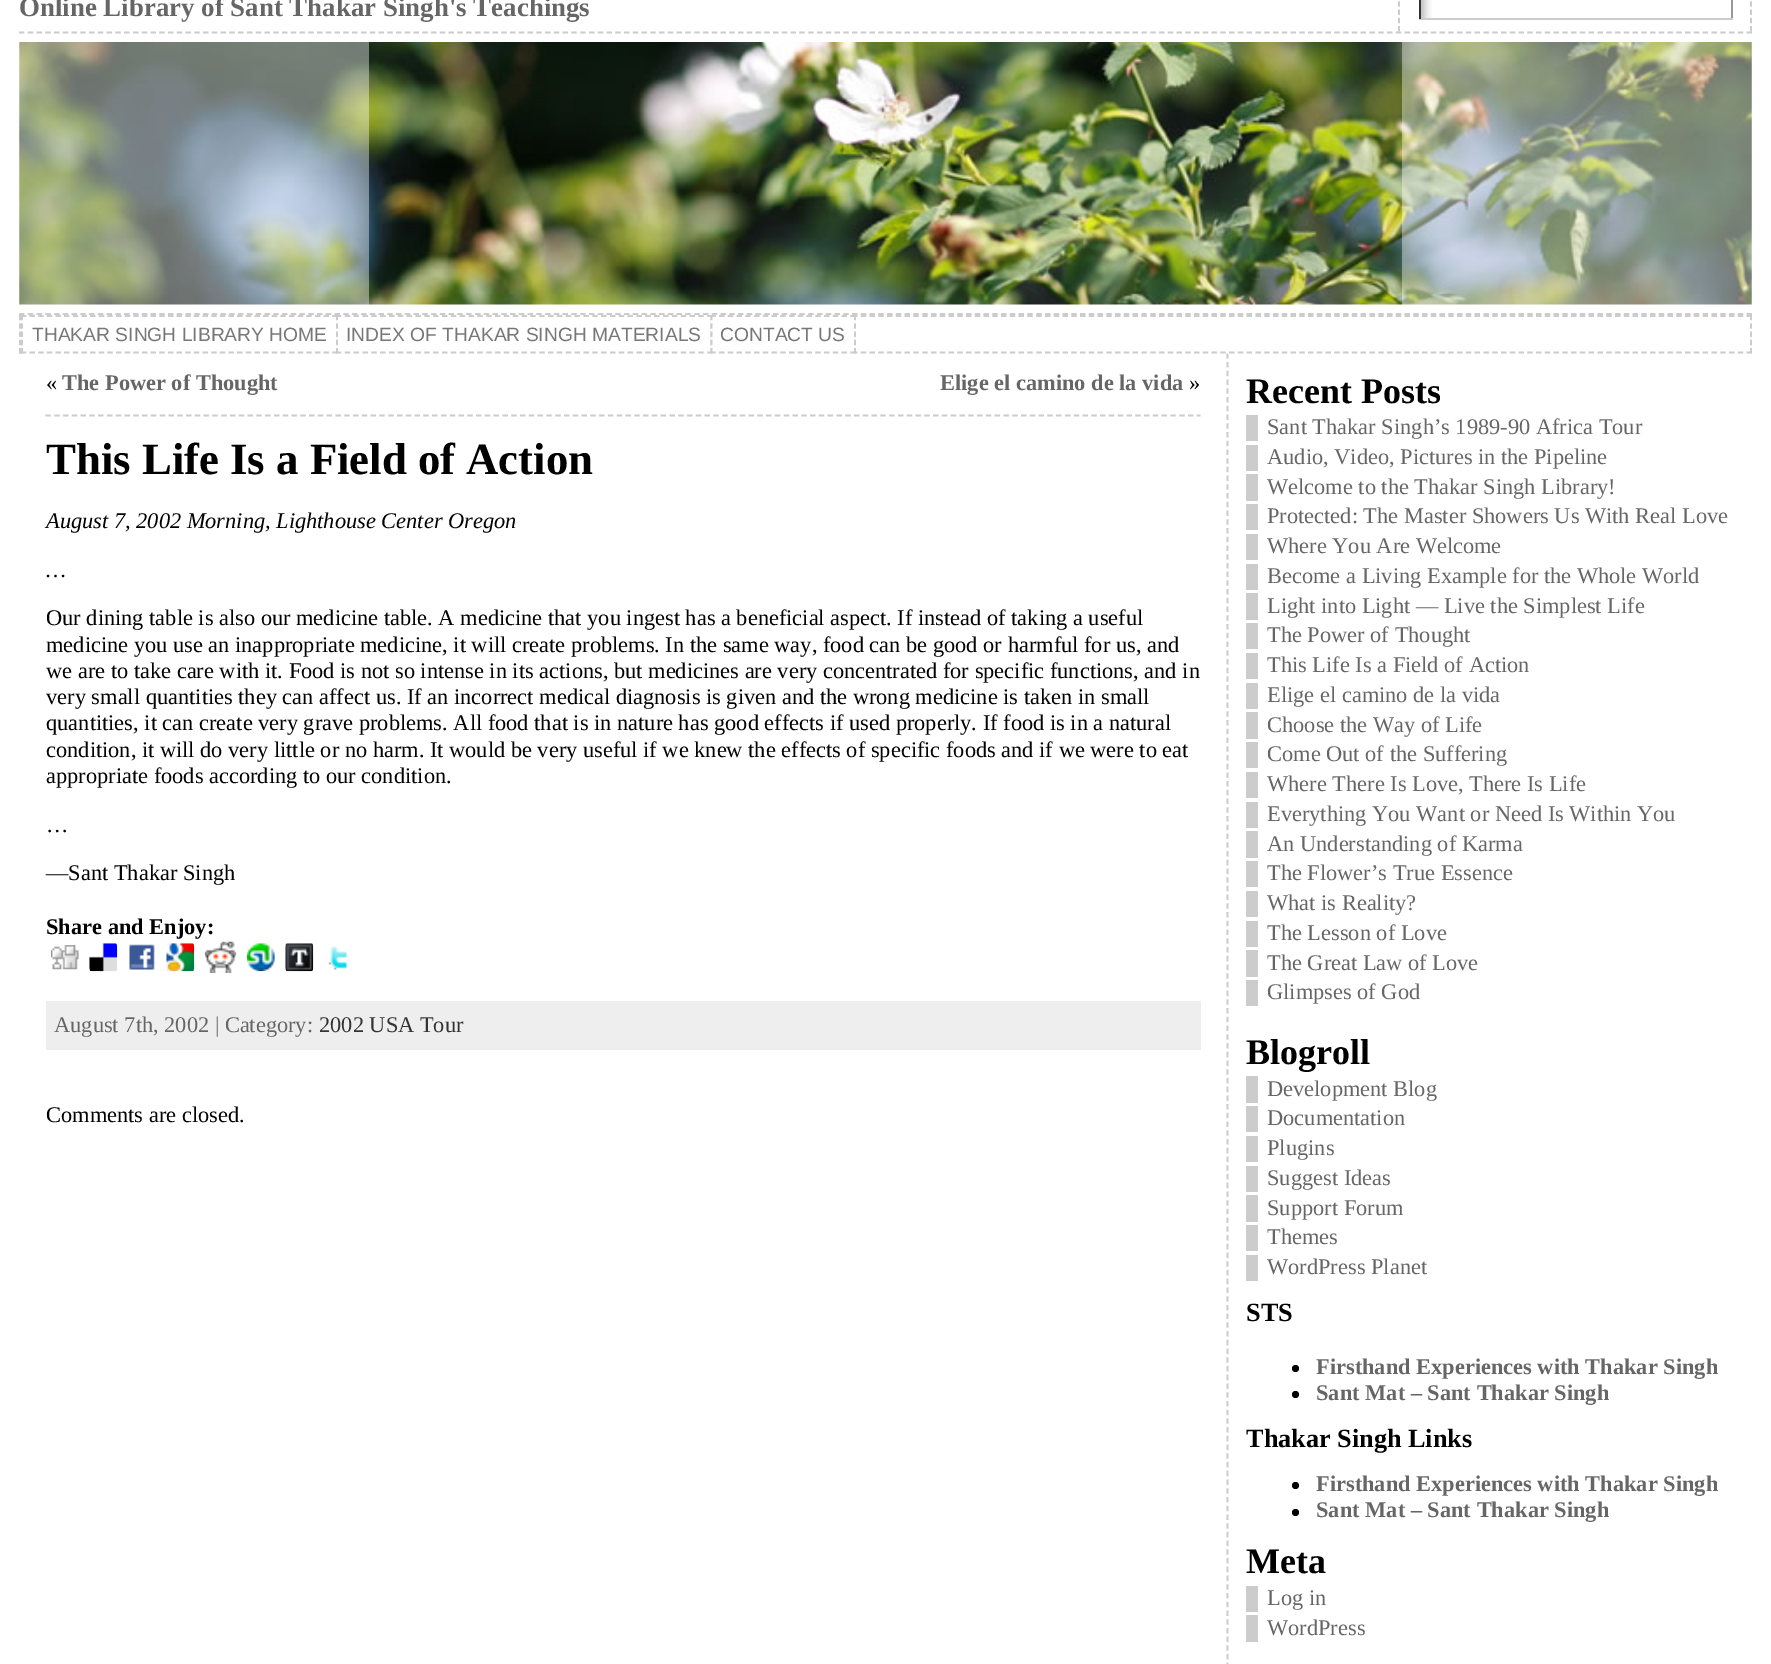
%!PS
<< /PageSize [1771 1664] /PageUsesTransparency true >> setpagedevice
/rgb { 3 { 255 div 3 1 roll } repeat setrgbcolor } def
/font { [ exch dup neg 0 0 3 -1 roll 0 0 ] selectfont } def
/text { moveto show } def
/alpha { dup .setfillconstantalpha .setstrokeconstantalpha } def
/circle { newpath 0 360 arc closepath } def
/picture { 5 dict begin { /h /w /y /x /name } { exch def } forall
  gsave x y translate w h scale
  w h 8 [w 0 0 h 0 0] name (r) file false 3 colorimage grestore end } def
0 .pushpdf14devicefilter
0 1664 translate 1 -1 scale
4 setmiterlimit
255 255 255 rgb
0 0 1771 1664 rectfill
204 204 204 rgb
1.8 setlinewidth
[5.25 2.99] 0 setdash
1751 -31.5 moveto 0 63 rlineto stroke
1399 -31.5 moveto 0 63 rlineto stroke
(img_01.rgb) 1421 0 11 18 picture
153 153 153 rgb
1731 0 2 19 rectfill
204 204 204 rgb
1419 18 314 2 rectfill
51 51 51 rgb
1419 0 2 19 rectfill
204 204 204 rgb
[5.25 3.52] 0 setdash
19 32.5 moveto 1733 0 rlineto stroke
(img_02.rgb) 19 42 1733 263 picture
0.4 alpha
255 255 255 rgb
19 42 350 263 rectfill
1402 42 350 263 rectfill
1 alpha
204 204 204 rgb
19 314 moveto 1733 0 rlineto stroke
19 316 moveto 1733 0 rlineto stroke
[5.25 3.06] 0 setdash
1751 315 moveto 0 38.5 rlineto stroke
[5.25 3.52] 0 setdash
19 352.5 moveto 1733 0 rlineto stroke
[5.25 3.06] 0 setdash
20 315 moveto 0 38.5 rlineto stroke
255 255 255 rgb
21 315 315 39 rectfill
204 204 204 rgb
[5.25 3.4] 0 setdash
21 316 moveto 317 0 rlineto stroke
21 352.5 moveto 317 0 rlineto stroke
[5.25 3.06] 0 setdash
22 315 moveto 0 38.5 rlineto stroke
255 255 255 rgb
336 315 373 39 rectfill
204 204 204 rgb
[5.25 3.59] 0 setdash
336 316 moveto 376 0 rlineto stroke
[5.25 3.06] 0 setdash
711.5 315 moveto 0 38.5 rlineto stroke
[5.25 3.59] 0 setdash
336 352.5 moveto 376 0 rlineto stroke
[5.25 3.06] 0 setdash
337 315 moveto 0 38.5 rlineto stroke
255 255 255 rgb
711 315 145 39 rectfill
204 204 204 rgb
[5.25 3.5] 0 setdash
710.5 316 moveto 145.5 0 rlineto stroke
[5.25 3.06] 0 setdash
855 315 moveto 0 38.5 rlineto stroke
[5.25 3.5] 0 setdash
710.5 352.5 moveto 145.5 0 rlineto stroke
[5.25 3.06] 0 setdash
711.5 315 moveto 0 38.5 rlineto stroke
[5.25 3.54] 0 setdash
45.5 415.5 moveto 1155 0 rlineto stroke
(img_03.rgb) 50 945 29 25 picture
(img_04.rgb) 89 943 29 29 picture
(img_05.rgb) 129 944 26 26 picture
(img_06.rgb) 166 943 29 29 picture
(img_07.rgb) 204 941 33 32 picture
(img_08.rgb) 246 943 29 29 picture
(img_09.rgb) 285 943 29 29 picture
(img_10.rgb) 328 946 19 24 picture
238 238 238 rgb
46 1001 1155 49 rectfill
204 204 204 rgb
[5.25 3.48] 0 setdash
1227.5 353.5 moveto 0 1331.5 rlineto stroke
1246 415 12 26 rectfill
1246 445 12 26 rectfill
1246 474 12 27 rectfill
1246 504 12 26 rectfill
1246 534 12 26 rectfill
1246 564 12 26 rectfill
1246 593 12 27 rectfill
1246 623 12 26 rectfill
1246 653 12 26 rectfill
1246 683 12 26 rectfill
1246 712 12 27 rectfill
1246 742 12 26 rectfill
1246 772 12 26 rectfill
1246 802 12 26 rectfill
1246 831 12 27 rectfill
1246 861 12 26 rectfill
1246 891 12 26 rectfill
1246 921 12 26 rectfill
1246 950 12 27 rectfill
1246 980 12 26 rectfill
1246 1076 12 27 rectfill
1246 1106 12 26 rectfill
1246 1136 12 26 rectfill
1246 1166 12 26 rectfill
1246 1195 12 27 rectfill
1246 1225 12 26 rectfill
1246 1255 12 26 rectfill
0 0 0 rgb
1295.5 1368.5 3.5 circle fill
1295.5 1394.5 3.5 circle fill
1295.5 1485.5 3.5 circle fill
1295.5 1512.5 3.5 circle fill
204 204 204 rgb
1246 1586 12 26 rectfill
1246 1615 12 27 rectfill
/LiberationSerif-Bold 26.9 font
102 102 102 rgb
(Online Library of Sant Thakar Singh's Teachings) 19 16 text
/LiberationSans-Regular 19.25 font
119 119 119 rgb
(THAKAR SINGH LIBRARY HOME) 32 341 text
(INDEX OF THAKAR SINGH MATERIALS) 346 341 text
(CONTACT US) 720 341 text
/LiberationSerif-Regular 22.4 font
0 0 0 rgb
(«) 46 390 text
/LiberationSerif-Bold 22.4 font
102 102 102 rgb
(The Power of Thought) 62 390 text
(Elige el camino de la vida) 940 390 text
/LiberationSerif-Regular 22.4 font
0 0 0 rgb
(») 1189 390 text
/LiberationSerif-Bold 44.75 font
(This Life Is a Field of Action) 46 474 text
/LiberationSerif-Italic 22.4 font
(August 7, 2002 Morning, Lighthouse Center Oregon) 46 528 text
(…) 46 577 text
/LiberationSerif-Regular 22.4 font
(Our dining table is also our medicine table. A medicine that you ingest has a beneficial aspect. If instead of taking a useful) 46 625 text
(medicine you use an inappropriate medicine, it will create problems. In the same way, food can be good or harmful for us, and) 46 652 text
(we are to take care with it. Food is not so intense in its actions, but medicines are very concentrated for specific functions, and in) 46 678 text
(very small quantities they can affect us. If an incorrect medical diagnosis is given and the wrong medicine is taken in small) 46 704 text
(quantities, it can create very grave problems. All food that is in nature has good effects if used properly. If food is in a natural) 46 730 text
(condition, it will do very little or no harm. It would be very useful if we knew the effects of specific foods and if we were to eat) 46 757 text
(appropriate foods according to our condition.) 46 783 text
(…) 46 832 text
(—Sant Thakar Singh) 46 880 text
/LiberationSerif-Bold 22.4 font
(Share and Enjoy:) 46 934 text
/LiberationSerif-Regular 22.4 font
102 102 102 rgb
(August 7th, 2002 | Category:) 54 1032 text
51 51 51 rgb
(2002 USA Tour) 319 1032 text
0 0 0 rgb
(Comments are closed.) 46 1122 text
/LiberationSerif-Bold 36 font
(Recent Posts) 1246 403 text
/LiberationSerif-Regular 22.4 font
102 102 102 rgb
(Sant Thakar Singh’s 1989-90 Africa Tour) 1267 434 text
(Audio, Video, Pictures in the Pipeline) 1267 464 text
(Welcome to the Thakar Singh Library!) 1267 494 text
(Protected: The Master Showers Us With Real Love) 1267 523 text
(Where You Are Welcome) 1267 553 text
(Become a Living Example for the Whole World) 1267 583 text
(Light into Light — Live the Simplest Life) 1267 613 text
(The Power of Thought) 1267 642 text
(This Life Is a Field of Action) 1267 672 text
(Elige el camino de la vida) 1267 702 text
(Choose the Way of Life) 1267 732 text
(Come Out of the Suffering) 1267 761 text
(Where There Is Love, There Is Life) 1267 791 text
(Everything You Want or Need Is Within You) 1267 821 text
(An Understanding of Karma) 1267 851 text
(The Flower’s True Essence) 1267 880 text
(What is Reality?) 1267 910 text
(The Lesson of Love) 1267 940 text
(The Great Law of Love) 1267 970 text
(Glimpses of God) 1267 999 text
/LiberationSerif-Bold 36 font
0 0 0 rgb
(Blogroll) 1246 1064 text
/LiberationSerif-Regular 22.4 font
102 102 102 rgb
(Development Blog) 1267 1096 text
(Documentation) 1267 1125 text
(Plugins) 1267 1155 text
(Suggest Ideas) 1267 1185 text
(Support Forum) 1267 1215 text
(Themes) 1267 1244 text
(WordPress Planet) 1267 1274 text
/LiberationSerif-Bold 26.25 font
0 0 0 rgb
(STS) 1246 1321 text
/LiberationSerif-Bold 22.4 font
102 102 102 rgb
(Firsthand Experiences with Thakar Singh) 1316 1374 text
(Sant Mat – Sant Thakar Singh) 1316 1400 text
/LiberationSerif-Bold 26.25 font
0 0 0 rgb
(Thakar Singh Links) 1246 1447 text
/LiberationSerif-Bold 22.4 font
102 102 102 rgb
(Firsthand Experiences with Thakar Singh) 1316 1491 text
(Sant Mat – Sant Thakar Singh) 1316 1517 text
/LiberationSerif-Bold 36 font
0 0 0 rgb
(Meta) 1246 1573 text
/LiberationSerif-Regular 22.4 font
102 102 102 rgb
(Log in) 1267 1605 text
(WordPress) 1267 1635 text
.poppdf14devicefilter showpage
